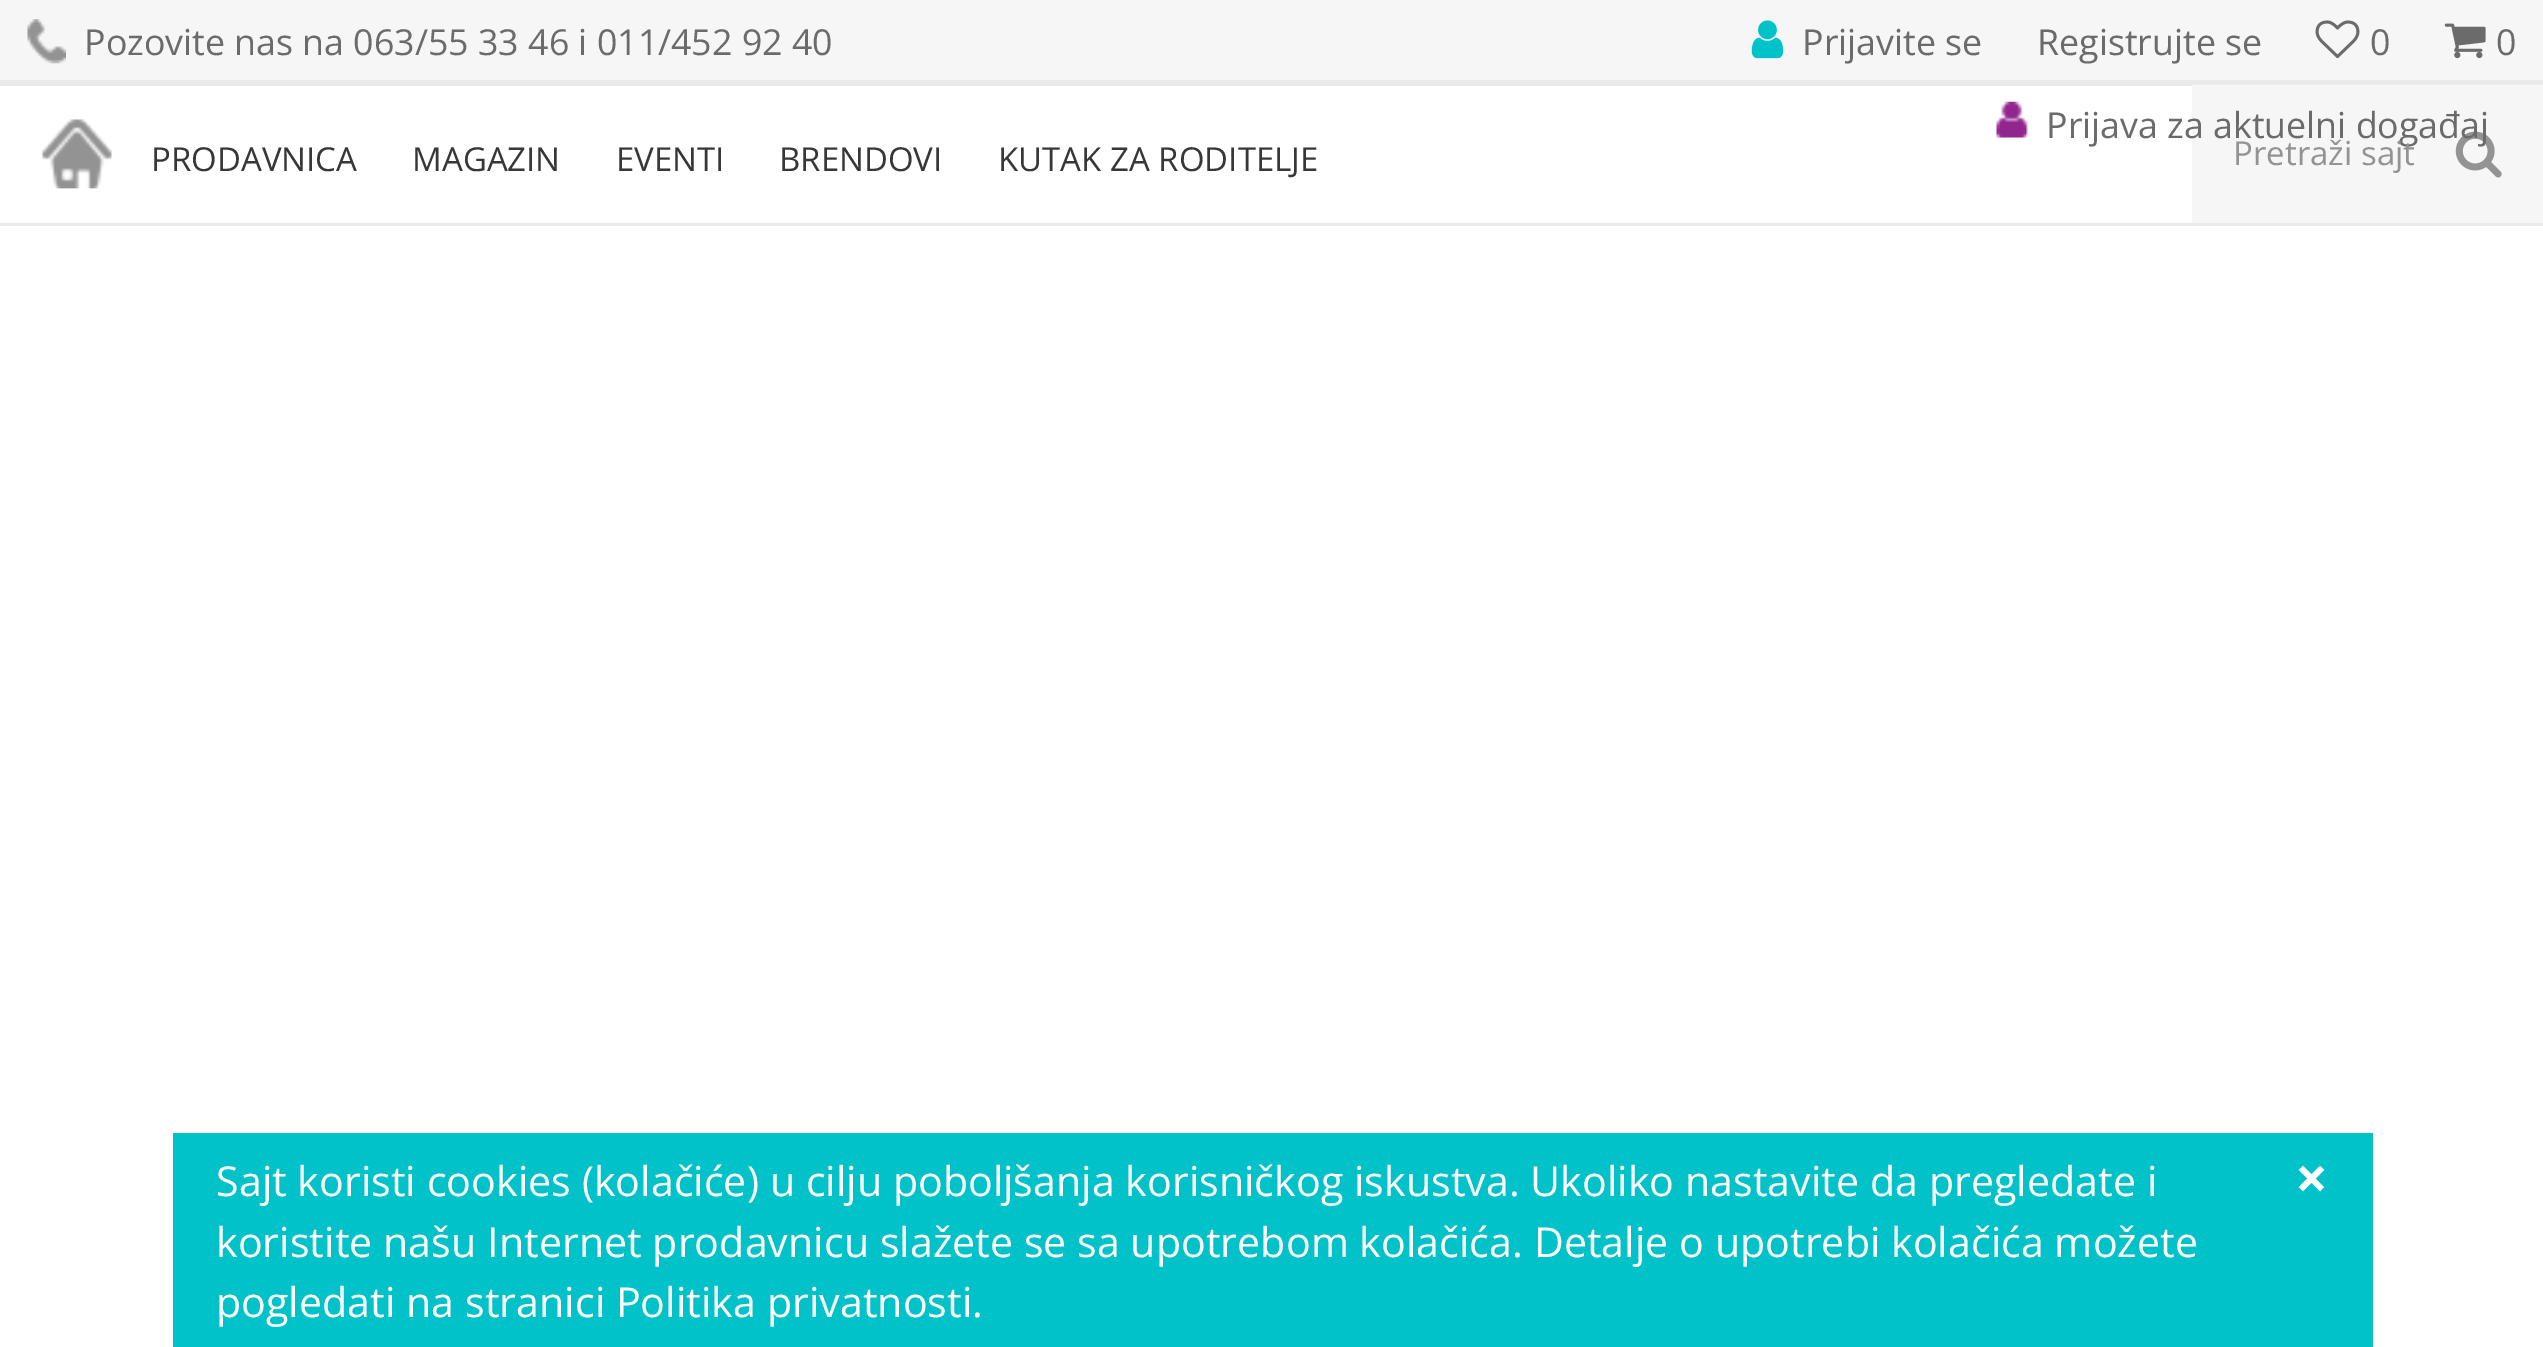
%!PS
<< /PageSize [2543 1347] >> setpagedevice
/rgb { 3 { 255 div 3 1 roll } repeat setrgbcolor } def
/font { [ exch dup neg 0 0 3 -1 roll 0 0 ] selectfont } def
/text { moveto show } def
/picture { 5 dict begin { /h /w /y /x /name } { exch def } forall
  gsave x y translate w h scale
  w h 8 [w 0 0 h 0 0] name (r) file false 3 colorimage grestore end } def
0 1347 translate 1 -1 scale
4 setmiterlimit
255 255 255 rgb
0 0 2543 1347 rectfill
246 246 246 rgb
0 0 2543 80 rectfill
(img_01.rgb) 27 19 39 45 picture
(img_02.rgb) 1751 20 33 39 picture
(img_03.rgb) 2315 20 45 39 picture
(img_04.rgb) 2444 23 42 36 picture
(img_05.rgb) 1996 101 32 37 picture
234 234 234 rgb
0 80 2543 6 rectfill
0 223 2543 3 rectfill
(img_06.rgb) 42 119 70 70 picture
246 246 246 rgb
2192 85 351 138 rectfill
(img_07.rgb) 2455 131 47 47 picture
1 194 201 rgb
173 1133 2200 214 rectfill
/OpenSans-Regular 35.75 font
107 107 107 rgb
(Pozovite nas na 063/55 33 46 i 011/452 92 40) 84 55 text
(Prijavite se) 1802 55 text
(Registrujte se) 2037 55 text
(0) 2370 55 text
(0) 2496 55 text
(Prijava za aktuelni događaj) 2046 138 text
/OpenSans-Regular 33 font
55 55 55 rgb
(PRODAVNICA) 151 171 text
(MAGAZIN) 412 171 text
(EVENTI) 616 171 text
(BRENDOVI) 779 171 text
(KUTAK ZA RODITELJE) 998 171 text
147 147 147 rgb
(Pretraži sajt) 2233 165 text
/OpenSans-Regular 41.25 font
255 255 255 rgb
(Sajt koristi cookies \(kolačiće\) u cilju poboljšanja korisničkog iskustva. Ukoliko nastavite da pregledate i) 216 1196 text
(koristite našu Internet prodavnicu slažete se sa upotrebom kolačića. Detalje o upotrebi kolačića možete) 216 1257 text
(pogledati na stranici Politika privatnosti.) 216 1317 text
/OpenSans-Bold 58 font
(×) 2295 1199 text
showpage
